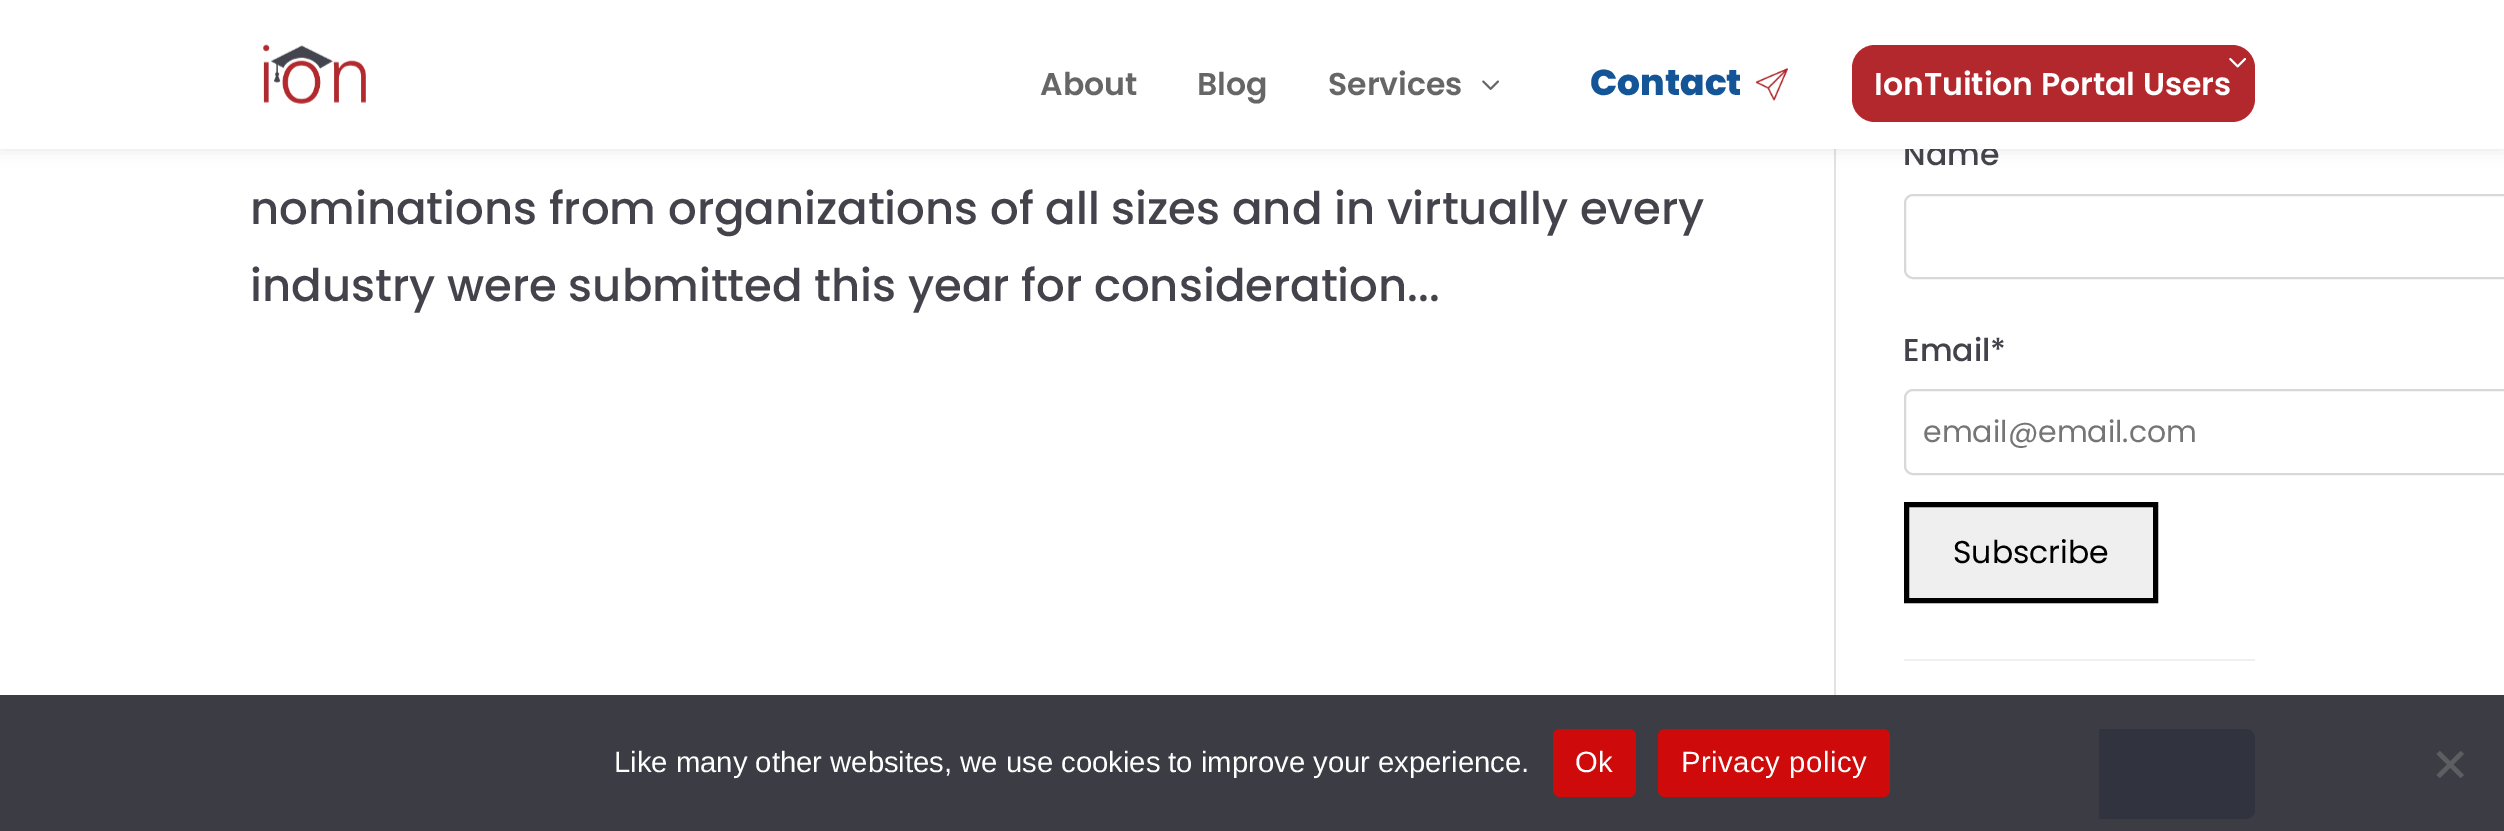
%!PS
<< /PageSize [2504 831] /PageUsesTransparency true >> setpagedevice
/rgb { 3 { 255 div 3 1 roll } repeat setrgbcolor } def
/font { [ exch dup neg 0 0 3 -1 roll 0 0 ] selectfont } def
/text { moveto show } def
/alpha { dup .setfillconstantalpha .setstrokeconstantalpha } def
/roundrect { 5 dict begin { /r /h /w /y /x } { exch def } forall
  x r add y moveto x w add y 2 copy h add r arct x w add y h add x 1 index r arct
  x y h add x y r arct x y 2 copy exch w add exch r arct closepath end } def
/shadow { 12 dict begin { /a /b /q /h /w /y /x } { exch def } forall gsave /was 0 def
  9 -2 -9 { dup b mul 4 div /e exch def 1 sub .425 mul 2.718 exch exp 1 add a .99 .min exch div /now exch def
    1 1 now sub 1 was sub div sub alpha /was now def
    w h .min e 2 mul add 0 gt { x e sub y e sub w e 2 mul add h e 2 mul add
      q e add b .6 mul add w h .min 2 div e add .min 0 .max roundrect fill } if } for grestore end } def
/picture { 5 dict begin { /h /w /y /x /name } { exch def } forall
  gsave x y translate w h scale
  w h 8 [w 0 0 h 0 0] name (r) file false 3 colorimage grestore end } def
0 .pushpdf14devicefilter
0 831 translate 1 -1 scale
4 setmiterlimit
255 255 255 rgb
0 0 2504 831 rectfill
60 60 68 rgb
0 695 2504 136 rectfill
226 226 226 rgb
1834 149 2 546 rectfill
0 0 0 rgb
0 0 2504 149 0 8 0.1 shadow
239 239 239 rgb
1904 659 351 2 rectfill
216 216 216 rgb
2 setlinewidth
1905 195 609 83 8 roundrect stroke
1905 390 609 84 8 roundrect stroke
239 239 239 rgb
1906.5 504.5 moveto 249 0 rlineto 0 96 rlineto -249 0 rlineto closepath gsave fill grestore
0 0 0 rgb
5 setlinewidth
stroke
49 52 62 rgb
2099 729 moveto 147 0 rlineto 5 0 9 4 9 9 rcurveto 0 72 rlineto 0 5 -4 9 -9 9 rcurveto -147 0 rlineto closepath fill
206 10 10 rgb
1553 729 83 68 7 roundrect fill
1658 729 232 68 7 roundrect fill
94 94 98 rgb
2460.5 751 moveto 3.5 3 rlineto -24 24 rlineto -3.5 -3 rlineto closepath fill
2436.5 754 moveto 3.5 -3 rlineto 24 24 rlineto -3.5 3 rlineto closepath fill
/Poppins-Medium 45 font
68 67 75 rgb
(nominations from organizations of all sizes and in virtually every) 250 224 text
(industry were submitted this year for consideration...) 250 301 text
/Poppins-Medium 31.5 font
(Name) 1903 165 text
255 255 255 rgb
0 0 2504 149 rectfill
179 40 44 rgb
1852 45 403 77 23 roundrect fill
(img_04.rgb) 2229 58 17 10 picture
/Poppins-SemiBold 31.5 font
255 255 255 rgb
(IonTuition Portal Users) 1874 95 text
(img_03.rgb) 1755 68 33 33 picture
/Poppins-ExtraBold 36 font
19 85 150 rgb
(Contact) 1590 95 text
(img_02.rgb) 1482 80 17 10 picture
/Poppins-SemiBold 31.5 font
102 102 102 rgb
(Services) 1328 95 text
(Blog) 1197 95 text
(About) 1040 95 text
(img_01.rgb) 263 44 103 60 picture
/Poppins-Medium 31.5 font
68 67 75 rgb
(Email*) 1903 361 text
/Poppins-Regular 30 font
117 117 117 rgb
(email@email.com) 1923 442 text
/Poppins-Regular 31.5 font
0 0 0 rgb
(Subscribe) 1953 563 text
/LiberationSans-Regular 29.25 font
255 255 255 rgb
(Like many other websites, we use cookies to improve your experience.) 614 772 text
1575 772 moveto 0.5 0 (Ok) ashow
1681 772 moveto 0.5 0 (Privacy policy) ashow
.poppdf14devicefilter showpage
